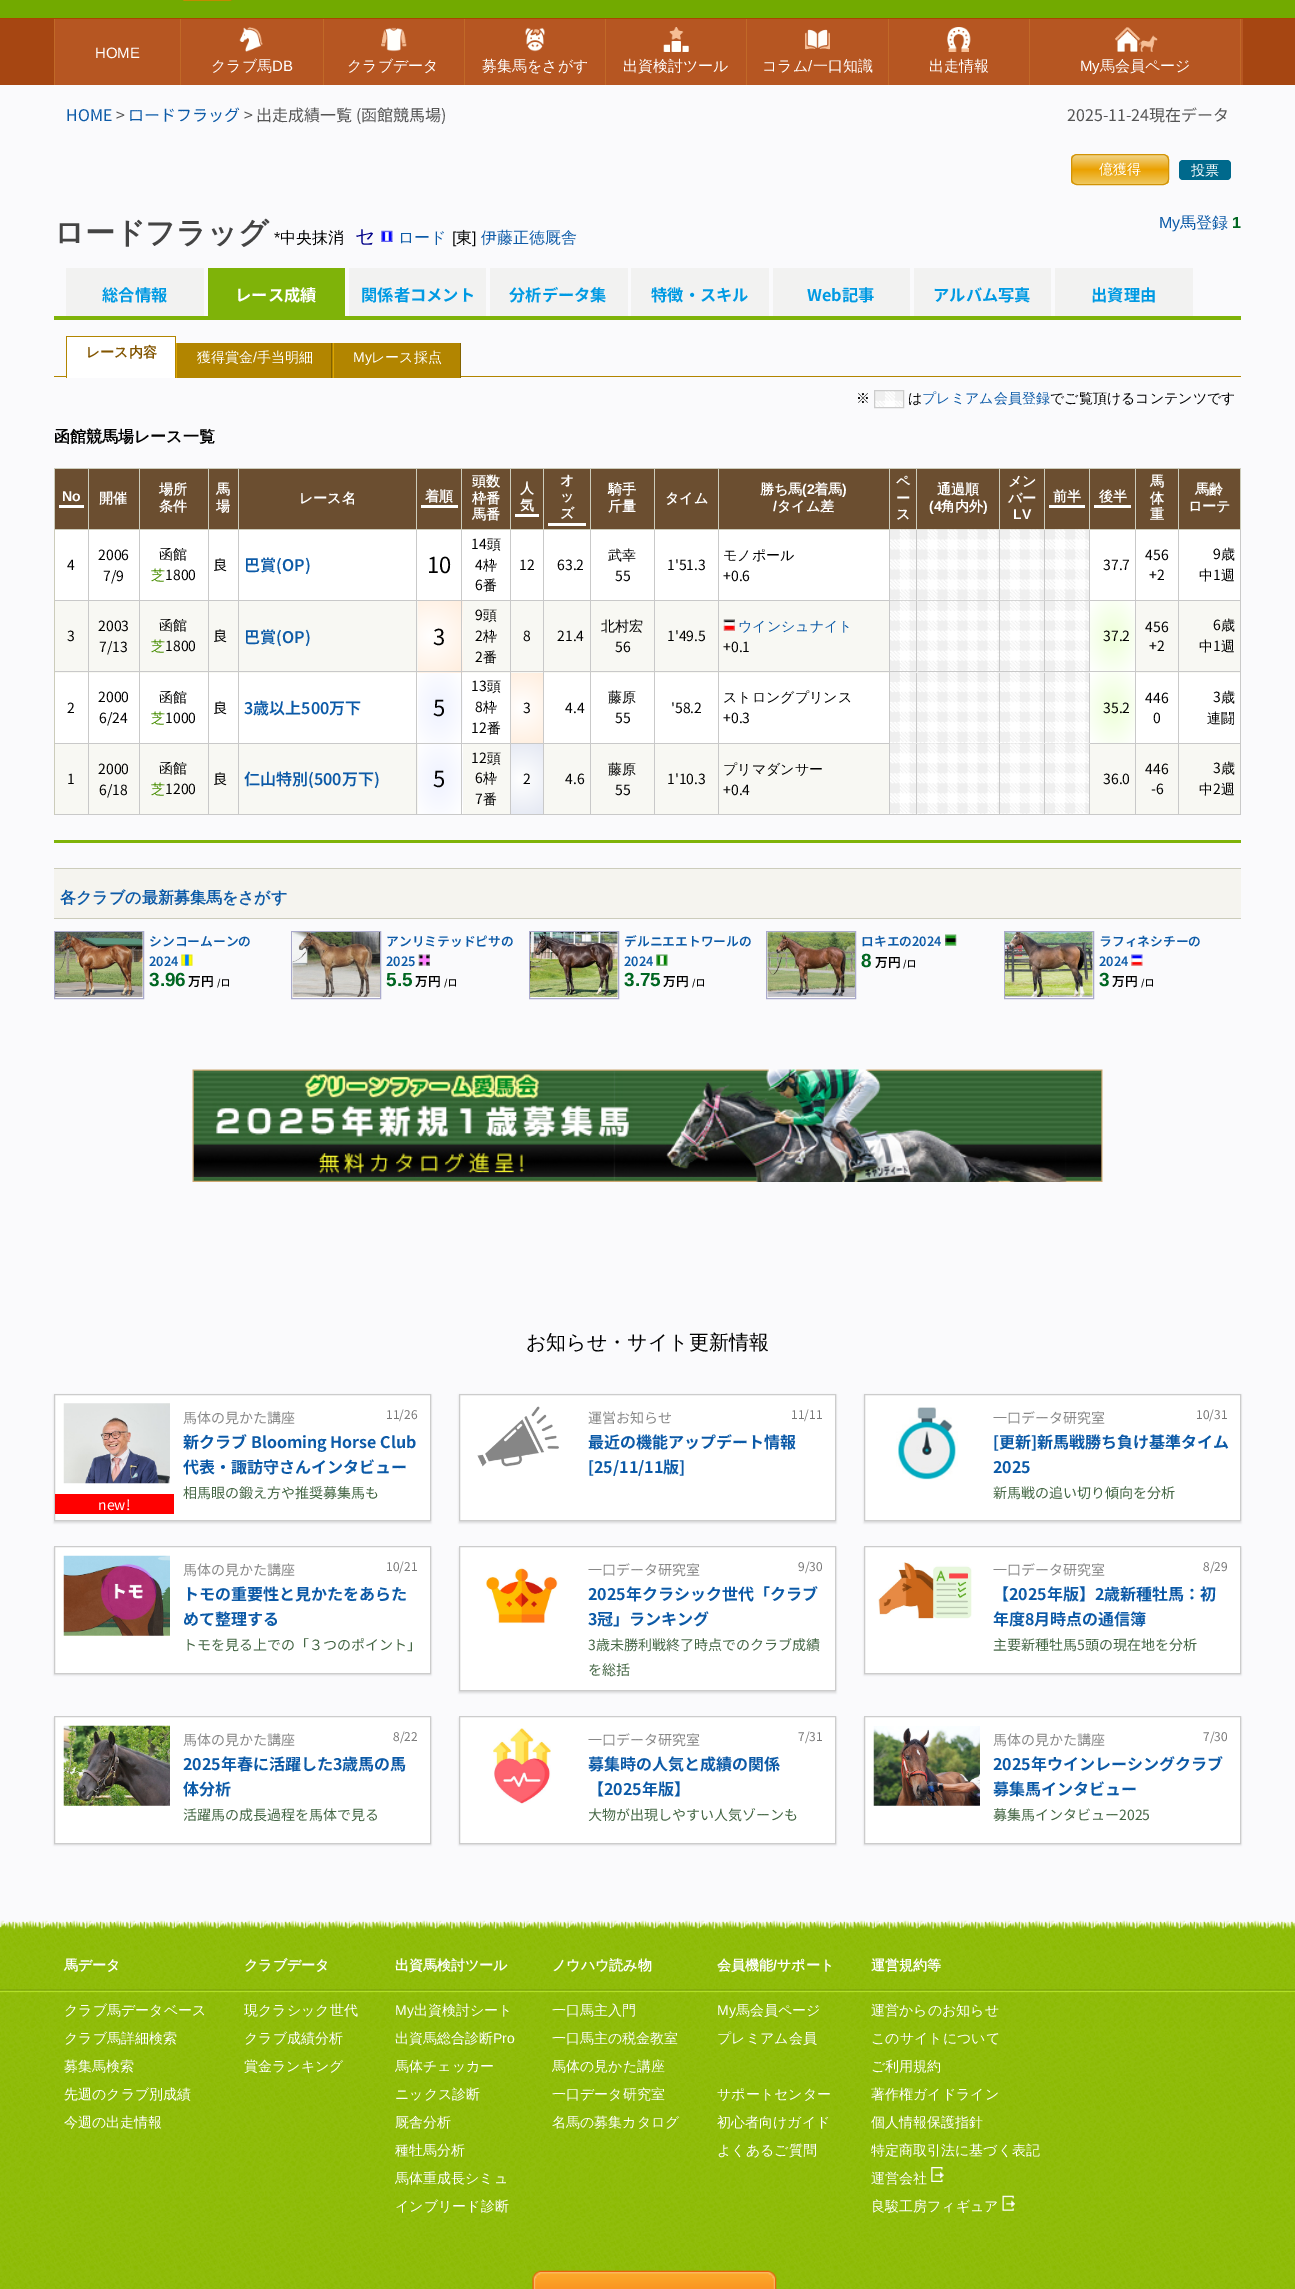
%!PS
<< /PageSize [1295 2289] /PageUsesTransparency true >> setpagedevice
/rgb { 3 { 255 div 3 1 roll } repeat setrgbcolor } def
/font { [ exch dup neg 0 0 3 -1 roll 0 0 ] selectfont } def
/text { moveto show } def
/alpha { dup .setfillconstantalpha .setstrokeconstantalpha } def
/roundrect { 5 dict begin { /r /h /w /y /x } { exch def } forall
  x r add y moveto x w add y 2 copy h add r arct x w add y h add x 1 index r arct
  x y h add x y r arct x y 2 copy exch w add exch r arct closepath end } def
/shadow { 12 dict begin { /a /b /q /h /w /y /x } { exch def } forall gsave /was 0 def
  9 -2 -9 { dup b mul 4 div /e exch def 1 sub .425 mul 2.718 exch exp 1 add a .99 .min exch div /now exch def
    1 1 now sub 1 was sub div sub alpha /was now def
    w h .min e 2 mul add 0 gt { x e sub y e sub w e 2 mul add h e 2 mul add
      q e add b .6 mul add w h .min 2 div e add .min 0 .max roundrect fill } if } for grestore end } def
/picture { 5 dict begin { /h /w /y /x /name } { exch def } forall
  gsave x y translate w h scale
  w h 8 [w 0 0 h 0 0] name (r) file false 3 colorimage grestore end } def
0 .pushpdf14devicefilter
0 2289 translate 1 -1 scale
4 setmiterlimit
250 250 252 rgb
0 0 1295 2289 rectfill
114 170 0 rgb
0 0 1295 18 rectfill
170 68 0 rgb
0 18 1295 1 rectfill
(img_01.rgb) 182 0 50 1 picture
166 70 18 rgb
0 19 1295 66 rectfill
182 86 34 rgb
55 19 1188 66 rectfill
193 105 40 rgb
54 19 1 66 rectfill
180 19 1 66 rectfill
323 19 1 66 rectfill
(img_02.rgb) 239 27 24 25 picture
464 19 1 66 rectfill
(img_03.rgb) 381 27 26 25 picture
605 19 1 66 rectfill
(img_04.rgb) 525 27 20 25 picture
746 19 1 66 rectfill
(img_05.rgb) 663 27 26 25 picture
888 19 1 66 rectfill
(img_06.rgb) 805 29 25 21 picture
1029 19 1 66 rectfill
(img_07.rgb) 947 27 24 25 picture
1240 19 1 66 rectfill
(img_08.rgb) 1115 27 43 25 picture
gsave
1071 154 98 31 6 roundrect clip newpath
gsave 1071 155 moveto 98 0 rlineto 0 29 rlineto -98 0 rlineto closepath clip newpath
<< /ShadingType 2 /ColorSpace /DeviceRGB /Coords [1120 155 1120 184] /Extend [true true] /Function << /FunctionType 3 /Domain [0 1] /Functions [<< /FunctionType 2 /Domain [0 1] /C0 [0.945 0.835 0.545] /C1 [0.922 0.631 0] /N 1 >> << /FunctionType 2 /Domain [0 1] /C0 [0.922 0.631 0] /C1 [0.937 0.784 0.373] /N 1 >>] /Bounds [0.5] /Encode [0 1 0 1] >> >> shfill grestore
grestore
210 147 6 rgb
1071.5 154.5 97 30 5.5 roundrect stroke
0 105 140 rgb
1179 160 52 20 4 roundrect fill
(img_09.rgb) 381 230 12 12 picture
242 242 241 rgb
66 268 138 48 rectfill
127 179 9 rgb
208 268 137 48 rectfill
242 242 241 rgb
349 268 137 48 rectfill
490 268 138 48 rectfill
631 268 138 48 rectfill
773 268 137 48 rectfill
914 268 137 48 rectfill
1055 268 138 48 rectfill
127 179 9 rgb
54 316 1187 4 rectfill
54 840 1187 3 rectfill
178 133 0 rgb
54 376 1187 1 rectfill
255 255 255 rgb
67 337 108 41 rectfill
178 133 0 rgb
66 336 110 1 rectfill
175 336 1 42 rectfill
66 336 1 42 rectfill
177 343 156 35 rectfill
130 98 0 rgb
331 343 1 35 rectfill
219 165 0 rgb
176 343 1 35 rectfill
178 133 0 rgb
334 343 126 35 rectfill
130 98 0 rgb
460 343 1 35 rectfill
219 165 0 rgb
333 343 1 35 rectfill
(img_10.rgb) 875 391 28 16 picture
204 204 204 rgb
874.5 390.5 29 17 rectstroke
255 255 255 rgb
55 530 1185 284 rectfill
204 204 187 rgb
54 468 1187 1 rectfill
54 468 1 347 rectfill
107 78 48 rgb
55 469 33 60 rectfill
204 204 187 rgb
88 469 1 61 rectfill
55 529 34 1 rectfill
255 255 255 rgb
59 505 25 3 rectfill
107 78 48 rgb
89 469 50 60 rectfill
204 204 187 rgb
139 469 1 61 rectfill
89 529 51 1 rectfill
107 78 48 rgb
140 469 68 60 rectfill
204 204 187 rgb
208 469 1 61 rectfill
140 529 69 1 rectfill
107 78 48 rgb
209 469 29 60 rectfill
204 204 187 rgb
238 469 1 61 rectfill
209 529 30 1 rectfill
107 78 48 rgb
239 469 271 60 rectfill
204 204 187 rgb
416 469 1 61 rectfill
239 529 179 1 rectfill
461 469 1 61 rectfill
418 529 45 1 rectfill
255 255 255 rgb
421 505 37 3 rectfill
204 204 187 rgb
510 469 1 61 rectfill
463 529 48 1 rectfill
107 78 48 rgb
511 469 32 60 rectfill
204 204 187 rgb
543 469 1 61 rectfill
511 529 33 1 rectfill
255 255 255 rgb
515 514 24 3 rectfill
107 78 48 rgb
544 469 46 60 rectfill
204 204 187 rgb
590 469 1 61 rectfill
544 529 47 1 rectfill
255 255 255 rgb
548 523 38 3 rectfill
107 78 48 rgb
591 469 63 60 rectfill
204 204 187 rgb
654 469 1 61 rectfill
591 529 64 1 rectfill
107 78 48 rgb
655 469 63 60 rectfill
204 204 187 rgb
718 469 1 61 rectfill
655 529 64 1 rectfill
107 78 48 rgb
719 469 170 60 rectfill
204 204 187 rgb
889 469 1 61 rectfill
719 529 171 1 rectfill
107 78 48 rgb
890 469 109 60 rectfill
204 204 187 rgb
916 469 1 61 rectfill
890 529 28 1 rectfill
999 469 1 61 rectfill
918 529 82 1 rectfill
107 78 48 rgb
1000 469 44 60 rectfill
204 204 187 rgb
1044 469 1 61 rectfill
1000 529 45 1 rectfill
107 78 48 rgb
1045 469 44 60 rectfill
204 204 187 rgb
1089 469 1 61 rectfill
1045 529 45 1 rectfill
255 255 255 rgb
1049 505 36 3 rectfill
107 78 48 rgb
1090 469 45 60 rectfill
204 204 187 rgb
1135 469 1 61 rectfill
1090 529 46 1 rectfill
255 255 255 rgb
1094 505 37 3 rectfill
107 78 48 rgb
1136 469 42 60 rectfill
204 204 187 rgb
1178 469 1 61 rectfill
1136 529 43 1 rectfill
107 78 48 rgb
1179 469 61 60 rectfill
204 204 187 rgb
1240 469 1 61 rectfill
1179 529 62 1 rectfill
201 201 201 rgb
88 530 1 285 rectfill
55 600 34 1 rectfill
139 530 1 285 rectfill
89 600 51 1 rectfill
208 530 1 285 rectfill
140 600 69 1 rectfill
238 530 1 285 rectfill
209 600 30 1 rectfill
416 530 1 71 rectfill
239 600 179 1 rectfill
461 530 1 71 rectfill
418 600 45 1 rectfill
510 530 1 285 rectfill
463 600 48 1 rectfill
543 530 1 285 rectfill
511 600 33 1 rectfill
590 530 1 285 rectfill
544 600 47 1 rectfill
654 530 1 285 rectfill
591 600 64 1 rectfill
718 530 1 285 rectfill
655 600 64 1 rectfill
889 530 1 285 rectfill
719 600 171 1 rectfill
(img_11.rgb) 890 529 28 71 picture
916 530 1 71 rectfill
890 600 28 1 rectfill
(img_12.rgb) 917 529 83 72 picture
999 530 1 71 rectfill
918 600 82 1 rectfill
(img_13.rgb) 1000 529 45 71 picture
1044 530 1 71 rectfill
1000 600 45 1 rectfill
(img_14.rgb) 1045 529 45 71 picture
1089 530 1 71 rectfill
1045 600 45 1 rectfill
1135 530 1 285 rectfill
1090 600 46 1 rectfill
1178 530 1 285 rectfill
1136 600 43 1 rectfill
1240 530 1 285 rectfill
1179 600 62 1 rectfill
248 248 243 rgb
55 601 33 72 rectfill
201 201 201 rgb
55 671 34 1 rectfill
248 248 243 rgb
89 601 50 72 rectfill
201 201 201 rgb
89 671 51 1 rectfill
248 248 243 rgb
140 601 68 72 rectfill
201 201 201 rgb
140 671 69 1 rectfill
248 248 243 rgb
209 601 29 72 rectfill
201 201 201 rgb
209 671 30 1 rectfill
248 248 243 rgb
239 601 179 72 rectfill
201 201 201 rgb
416 601 1 143 rectfill
239 671 179 1 rectfill
gsave 418 601 moveto 43 0 rlineto 0 70 rlineto -43 0 rlineto closepath clip newpath 431 636 translate 47 47 scale
<< /ShadingType 3 /ColorSpace /DeviceRGB /Coords [0 0 0 0 0 1] /Extend [true true] /Function << /FunctionType 2 /Domain [0 1] /C0 [1 1 1] /C1 [1 0.933 0.871] /N 1 >> >> shfill grestore
gsave 462 601 moveto 1 0 rlineto 0 70 rlineto -1 0 rlineto closepath clip newpath 474 636 translate 47 47 scale
<< /ShadingType 3 /ColorSpace /DeviceRGB /Coords [0 0 0 0 0 1] /Extend [true true] /Function << /FunctionType 2 /Domain [0 1] /C0 [1 1 1] /C1 [1 0.933 0.871] /N 1 >> >> shfill grestore
gsave 418 672 moveto 43 0 rlineto 0 1 rlineto -43 0 rlineto closepath clip newpath 431 706 translate 47 47 scale
<< /ShadingType 3 /ColorSpace /DeviceRGB /Coords [0 0 0 0 0 1] /Extend [true true] /Function << /FunctionType 2 /Domain [0 1] /C0 [1 1 1] /C1 [1 0.933 0.871] /N 1 >> >> shfill grestore
gsave 461 672 moveto 2 0 rlineto 0 1 rlineto -2 0 rlineto closepath clip newpath 474 706 translate 47 47 scale
<< /ShadingType 3 /ColorSpace /DeviceRGB /Coords [0 0 0 0 0 1] /Extend [true true] /Function << /FunctionType 2 /Domain [0 1] /C0 [1 1 1] /C1 [1 0.933 0.871] /N 1 >> >> shfill grestore
461 601 1 214 rectfill
418 671 45 1 rectfill
248 248 243 rgb
463 601 47 72 rectfill
201 201 201 rgb
463 671 48 1 rectfill
248 248 243 rgb
511 601 32 72 rectfill
201 201 201 rgb
511 671 33 1 rectfill
248 248 243 rgb
544 601 46 72 rectfill
201 201 201 rgb
544 671 47 1 rectfill
248 248 243 rgb
591 601 63 72 rectfill
201 201 201 rgb
591 671 64 1 rectfill
248 248 243 rgb
655 601 63 72 rectfill
201 201 201 rgb
655 671 64 1 rectfill
248 248 243 rgb
719 601 170 72 rectfill
201 201 201 rgb
719 671 171 1 rectfill
(img_15.rgb) 723 619 12 12 picture
(img_16.rgb) 890 600 28 71 picture
916 601 1 72 rectfill
890 671 28 1 rectfill
(img_17.rgb) 917 600 83 72 picture
999 601 1 72 rectfill
918 671 82 1 rectfill
(img_18.rgb) 1000 600 45 71 picture
1044 601 1 72 rectfill
1000 671 45 1 rectfill
(img_19.rgb) 1045 600 45 71 picture
1089 601 1 72 rectfill
1045 671 91 1 rectfill
248 248 243 rgb
1136 601 42 72 rectfill
201 201 201 rgb
1136 671 43 1 rectfill
248 248 243 rgb
1179 601 61 72 rectfill
201 201 201 rgb
1179 671 62 1 rectfill
gsave 1090 601 moveto 45 0 rlineto 0 70 rlineto -45 0 rlineto closepath clip newpath 1113 636 translate 32 49 scale
<< /ShadingType 3 /ColorSpace /DeviceRGB /Coords [0 0 0 0 0 1] /Extend [true true] /Function << /FunctionType 2 /Domain [0 1] /C0 [0.929 1 0.843] /C1 [1 1 1] /N 1 >> >> shfill grestore
gsave 1090 672 moveto 45 0 rlineto 0 1 rlineto -45 0 rlineto closepath clip newpath 1113 706 translate 32 49 scale
<< /ShadingType 3 /ColorSpace /DeviceRGB /Coords [0 0 0 0 0 1] /Extend [true true] /Function << /FunctionType 2 /Domain [0 1] /C0 [0.929 1 0.843] /C1 [1 1 1] /N 1 >> >> shfill grestore
55 743 835 1 rectfill
gsave 418 673 moveto 43 0 rlineto 0 70 rlineto -43 0 rlineto closepath clip newpath 439 708 translate 31 49 scale
<< /ShadingType 3 /ColorSpace /DeviceRGB /Coords [0 0 0 0 0 1] /Extend [true true] /Function << /FunctionType 2 /Domain [0 1] /C0 [0.937 0.949 1] /C1 [1 1 1] /N 1 >> >> shfill grestore
gsave 462 682 moveto 1 0 rlineto 0 52 rlineto -1 0 rlineto closepath clip newpath 483 708 translate 31 49 scale
<< /ShadingType 3 /ColorSpace /DeviceRGB /Coords [0 0 0 0 0 1] /Extend [true true] /Function << /FunctionType 2 /Domain [0 1] /C0 [0.937 0.949 1] /C1 [1 1 1] /N 1 >> >> shfill grestore
gsave 511 673 moveto 32 0 rlineto 0 70 rlineto -32 0 rlineto closepath clip newpath 521 708 translate 41 41 scale
<< /ShadingType 3 /ColorSpace /DeviceRGB /Coords [0 0 0 0 0 1] /Extend [true true] /Function << /FunctionType 2 /Domain [0 1] /C0 [1 1 1] /C1 [1 0.933 0.871] /N 1 >> >> shfill grestore
(img_20.rgb) 890 672 28 71 picture
916 673 1 71 rectfill
890 743 28 1 rectfill
(img_21.rgb) 917 672 83 72 picture
999 673 1 71 rectfill
(img_22.rgb) 1000 672 45 71 picture
1044 673 1 71 rectfill
(img_23.rgb) 1045 672 45 71 picture
1089 673 1 71 rectfill
gsave 1090 673 moveto 45 0 rlineto 0 70 rlineto -45 0 rlineto closepath clip newpath 1113 708 translate 32 49 scale
<< /ShadingType 3 /ColorSpace /DeviceRGB /Coords [0 0 0 0 0 1] /Extend [true true] /Function << /FunctionType 2 /Domain [0 1] /C0 [0.929 1 0.843] /C1 [1 1 1] /N 1 >> >> shfill grestore
1090 743 151 1 rectfill
248 248 243 rgb
140 744 68 70 rectfill
463 744 47 70 rectfill
(img_24.rgb) 890 743 28 71 picture
201 201 201 rgb
916 744 1 71 rectfill
890 814 28 1 rectfill
(img_25.rgb) 917 743 83 72 picture
999 744 1 71 rectfill
918 814 82 1 rectfill
(img_26.rgb) 1000 743 45 71 picture
1044 744 1 71 rectfill
1000 814 45 1 rectfill
(img_27.rgb) 1045 743 45 71 picture
1089 744 1 71 rectfill
1045 814 196 1 rectfill
248 248 243 rgb
55 744 33 70 rectfill
201 201 201 rgb
55 814 184 1 rectfill
248 248 243 rgb
89 744 50 70 rectfill
209 744 29 70 rectfill
239 744 179 70 rectfill
201 201 201 rgb
416 744 1 71 rectfill
239 814 651 1 rectfill
gsave 418 744 moveto 43 0 rlineto 0 70 rlineto -43 0 rlineto closepath clip newpath 439 779 translate 31 49 scale
<< /ShadingType 3 /ColorSpace /DeviceRGB /Coords [0 0 0 0 0 1] /Extend [true true] /Function << /FunctionType 2 /Domain [0 1] /C0 [0.937 0.949 1] /C1 [1 1 1] /N 1 >> >> shfill grestore
gsave 462 753 moveto 1 0 rlineto 0 52 rlineto -1 0 rlineto closepath clip newpath 483 779 translate 31 49 scale
<< /ShadingType 3 /ColorSpace /DeviceRGB /Coords [0 0 0 0 0 1] /Extend [true true] /Function << /FunctionType 2 /Domain [0 1] /C0 [0.937 0.949 1] /C1 [1 1 1] /N 1 >> >> shfill grestore
gsave 511 744 moveto 32 0 rlineto 0 70 rlineto -32 0 rlineto closepath clip newpath 521 779 translate 41 41 scale
<< /ShadingType 3 /ColorSpace /DeviceRGB /Coords [0 0 0 0 0 1] /Extend [true true] /Function << /FunctionType 2 /Domain [0 1] /C0 [1 1 1] /C1 [0.894 0.91 0.953] /N 1 >> >> shfill grestore
248 248 243 rgb
544 744 46 70 rectfill
591 744 63 70 rectfill
655 744 63 70 rectfill
719 744 170 70 rectfill
1090 744 45 70 rectfill
1136 744 42 70 rectfill
1179 744 61 70 rectfill
245 244 239 rgb
54 869 1187 49 rectfill
204 204 187 rgb
54 868 1187 1 rectfill
54 918 1187 1 rectfill
170 170 204 rgb
54.5 931.5 89 67 rectstroke
(img_28.rgb) 55 932 88 65 picture
(img_29.rgb) 181 954 12 12 picture
291.5 931.5 89 67 rectstroke
(img_30.rgb) 292 932 88 65 picture
(img_31.rgb) 418 954 12 12 picture
529.5 931.5 89 67 rectstroke
(img_32.rgb) 530 932 88 65 picture
(img_33.rgb) 656 954 12 12 picture
766.5 931.5 89 67 rectstroke
(img_34.rgb) 767 932 88 65 picture
(img_35.rgb) 945 934 12 12 picture
1004.5 931.5 89 67 rectstroke
(img_36.rgb) 1005 932 88 65 picture
(img_37.rgb) 1131 954 12 12 picture
(img_38.rgb) 192 1069 911 113 picture
0 0 0 rgb
54 1395 377 128 0 1 0.12 shadow
255 255 255 rgb
54.5 1394.5 moveto 376 0 rlineto 0 126 rlineto -376 0 rlineto closepath gsave fill grestore
204 204 204 rgb
stroke
(img_39.rgb) 63 1403 107 81 picture
255 0 0 rgb
55 1494 119 20 rectfill
0 0 0 rgb
459 1395 377 128 0 1 0.12 shadow
255 255 255 rgb
459.5 1394.5 moveto 376 0 rlineto 0 126 rlineto -376 0 rlineto closepath gsave fill grestore
204 204 204 rgb
stroke
(img_40.rgb) 477 1406 82 61 picture
0 0 0 rgb
864 1395 377 128 0 1 0.12 shadow
255 255 255 rgb
864.5 1394.5 moveto 376 0 rlineto 0 126 rlineto -376 0 rlineto closepath gsave fill grestore
204 204 204 rgb
stroke
(img_41.rgb) 896 1407 62 73 picture
0 0 0 rgb
54 1548 377 127 0 1 0.12 shadow
255 255 255 rgb
54.5 1546.5 moveto 376 0 rlineto 0 127 rlineto -376 0 rlineto closepath gsave fill grestore
204 204 204 rgb
stroke
(img_42.rgb) 63 1555 107 81 picture
0 0 0 rgb
459 1548 377 145 0 1 0.12 shadow
255 255 255 rgb
459.5 1546.5 moveto 376 0 rlineto 0 144 rlineto -376 0 rlineto closepath gsave fill grestore
204 204 204 rgb
stroke
(img_43.rgb) 486 1567 72 57 picture
0 0 0 rgb
864 1548 377 127 0 1 0.12 shadow
255 255 255 rgb
864.5 1546.5 moveto 376 0 rlineto 0 127 rlineto -376 0 rlineto closepath gsave fill grestore
204 204 204 rgb
stroke
(img_44.rgb) 878 1562 94 57 picture
0 0 0 rgb
54 1718 377 127 0 1 0.12 shadow
255 255 255 rgb
54.5 1716.5 moveto 376 0 rlineto 0 127 rlineto -376 0 rlineto closepath gsave fill grestore
204 204 204 rgb
stroke
(img_45.rgb) 63 1725 107 81 picture
0 0 0 rgb
459 1718 377 127 0 1 0.12 shadow
255 255 255 rgb
459.5 1716.5 moveto 376 0 rlineto 0 127 rlineto -376 0 rlineto closepath gsave fill grestore
204 204 204 rgb
stroke
(img_46.rgb) 493 1728 58 76 picture
0 0 0 rgb
864 1718 377 127 0 1 0.12 shadow
255 255 255 rgb
864.5 1716.5 moveto 376 0 rlineto 0 127 rlineto -376 0 rlineto closepath gsave fill grestore
204 204 204 rgb
stroke
(img_47.rgb) 873 1726 107 80 picture
(img_48.rgb) 0 1920 1295 369 picture
(img_49.rgb) 931 2167 13 15 picture
(img_50.rgb) 1002 2195 13 16 picture
(img_51.rgb) 532 2270 245 19 picture
/LiberationSans-Regular 15 font
255 255 255 rgb
(HOME) 95 58 text
/WenQuanYiZenHei-Medium 15 font
(クラブ馬) 211 71 text
/LiberationSans-Regular 15 font
(DB) 272 71 text
/WenQuanYiZenHei-Medium 15 font
(クラブデータ) 347 71 text
(募集馬をさがす) 482 71 text
(出資検討ツール) 623 71 text
(コラム) 762 71 text
/LiberationSans-Regular 15 font
(/) 808 71 text
/WenQuanYiZenHei-Medium 15 font
(一口知識) 813 71 text
(出走情報) 929 71 text
/LiberationSans-Regular 15 font
(My) 1080 71 text
/WenQuanYiZenHei-Medium 15 font
(馬会員ページ) 1100 71 text
/NotoSansJP-Regular 16 font
12 90 167 rgb
(HOME) 66 121 text
85 85 85 rgb
(>) 116 121 text
12 90 167 rgb
(ロードフラッグ) 128 121 text
85 85 85 rgb
(> 出走成績一覧 \(函館競馬場\)) 244 121 text
(2025-11-24現在データ) 1067 121 text
/WenQuanYiZenHei-Medium 14 font
255 255 255 rgb
(億獲得) 1099 174 text
(投票) 1191 175 text
/WenQuanYiZenHei-Bold 30 font
68 68 68 rgb
(ロードフラッグ) 54 243 text
/LiberationSans-Regular 16 font
0 0 0 rgb
(*) 274 243 text
/WenQuanYiZenHei-Medium 16 font
(中央抹消) 280 243 text
/WenQuanYiZenHei-Medium 20 font
0 0 136 rgb
(セ) 355 243 text
/WenQuanYiZenHei-Medium 16 font
12 90 167 rgb
(ロード) 398 243 text
/LiberationSans-Regular 16 font
0 0 0 rgb
([) 452 243 text
/WenQuanYiZenHei-Medium 16 font
(東) 456 243 text
/LiberationSans-Regular 16 font
(]) 472 243 text
/WenQuanYiZenHei-Medium 16 font
12 90 167 rgb
(伊藤正徳厩舎) 481 243 text
/LiberationSans-Regular 16 font
(My) 1159 228 text
/WenQuanYiZenHei-Medium 16 font
(馬登録) 1180 228 text
/LiberationSans-Bold 16 font
0 102 33 rgb
(1) 1232 228 text
/NotoSansJP-Bold 16.25 font
0 154 227 rgb
(総合情報) 102 301 text
255 255 255 rgb
(レース成績) 235 301 text
0 154 227 rgb
(関係者コメント) 361 301 text
(分析データ集) 509 301 text
(特徴・スキル) 651 301 text
(Web記事) 807 301 text
(アルバム写真) 933 301 text
(出資理由) 1091 301 text
/WenQuanYiZenHei-Bold 14 font
130 85 0 rgb
(レース内容) 86 357 text
/WenQuanYiZenHei-Medium 14 font
255 255 255 rgb
(獲得賞金) 197 362 text
/LiberationSans-Regular 14 font
(/) 253 362 text
/WenQuanYiZenHei-Medium 14 font
(手当明細) 257 362 text
/LiberationSans-Regular 14 font
(My) 353 362 text
/WenQuanYiZenHei-Medium 14 font
(レース採点) 371 362 text
0 0 0 rgb
(※) 856 403 text
(は) 908 403 text
12 90 167 rgb
(プレミアム会員登録) 922 403 text
0 0 0 rgb
(でご覧頂けるコンテンツです) 1050 403 text
/WenQuanYiZenHei-Bold 16 font
(函館競馬場レース一覧) 54 442 text
/LiberationSans-Bold 14 font
255 255 255 rgb
(No) 62 501 text
/WenQuanYiZenHei-Bold 14 font
(開催) 99 503 text
(場所) 159 494 text
(条件) 159 511 text
(馬) 216 494 text
(場) 216 511 text
(レース名) 299 503 text
(着順) 425 501 text
(頭数) 472 486 text
(枠番) 472 503 text
(馬番) 472 519 text
(人) 520 493 text
(気) 520 510 text
(オ) 560 485 text
(ッ) 560 501 text
(ズ) 560 518 text
(騎手) 608 494 text
(斤量) 608 511 text
(タイム) 665 503 text
(勝ち馬) 760 494 text
/LiberationSans-Bold 14 font
(\(2) 802 494 text
/WenQuanYiZenHei-Bold 14 font
(着馬) 814 494 text
/LiberationSans-Bold 14 font
(\)) 842 494 text
(/) 773 511 text
/WenQuanYiZenHei-Bold 14 font
(タイム差) 777 511 text
(ペ) 896 486 text
(ー) 896 503 text
(ス) 896 519 text
(通過順) 937 494 text
/LiberationSans-Bold 14 font
(\(4) 929 511 text
/WenQuanYiZenHei-Bold 14 font
(角内外) 941 511 text
/LiberationSans-Bold 14 font
(\)) 983 511 text
/WenQuanYiZenHei-Bold 14 font
(メン) 1008 486 text
(バー) 1008 503 text
/LiberationSans-Bold 14 font
(LV) 1013 519 text
/WenQuanYiZenHei-Bold 14 font
(前半) 1053 501 text
(後半) 1099 501 text
(馬) 1150 486 text
(体) 1150 503 text
(重) 1150 519 text
(馬齢) 1195 494 text
(ローテ) 1188 511 text
/NotoSansJP-Regular 14 font
0 0 0 rgb
(4) 67 570 text
(2006) 98 560 text
(7/9) 103 581 text
/WenQuanYiZenHei-Medium 14 font
(函館) 159 559 text
70 140 0 rgb
(芝) 151 580 text
/NotoSansJP-Regular 14 font
0 0 0 rgb
(1800) 165 580 text
(良) 213 570 text
/NotoSansJP-SemiBold 16 font
12 90 167 rgb
(巴賞\(OP\)) 244 571 text
/NotoSansJP-Regular 22 font
0 0 0 rgb
(10) 427 573 text
/NotoSansJP-Regular 14 font
(14) 471 549 text
/WenQuanYiZenHei-Medium 14 font
(頭) 487 549 text
/NotoSansJP-Regular 14 font
(4) 475 570 text
/WenQuanYiZenHei-Medium 14 font
(枠) 483 570 text
/NotoSansJP-Regular 14 font
(6) 475 590 text
/WenQuanYiZenHei-Medium 14 font
(番) 483 590 text
/NotoSansJP-Regular 14 font
(12) 519 570 text
(63.2) 557 570 text
/WenQuanYiZenHei-Medium 14 font
(武幸) 608 560 text
/NotoSansJP-Regular 14 font
(55) 615 581 text
(1'51.3) 667 570 text
/WenQuanYiZenHei-Medium 14 font
(モノポール) 723 560 text
/NotoSansJP-Regular 14 font
(+0.6) 723 581 text
(37.7) 1103 570 text
(456) 1145 560 text
(+2) 1149 580 text
(9) 1213 559 text
/WenQuanYiZenHei-Medium 14 font
(歳) 1221 559 text
(中) 1199 580 text
/NotoSansJP-Regular 14 font
(1) 1213 580 text
/WenQuanYiZenHei-Medium 14 font
(週) 1221 580 text
/NotoSansJP-Regular 14 font
(3) 67 641 text
(2003) 98 631 text
(7/13) 99 652 text
/WenQuanYiZenHei-Medium 14 font
(函館) 159 630 text
70 140 0 rgb
(芝) 151 651 text
/NotoSansJP-Regular 14 font
0 0 0 rgb
(1800) 165 651 text
(良) 213 641 text
/NotoSansJP-SemiBold 16 font
12 90 167 rgb
(巴賞\(OP\)) 244 643 text
/NotoSansJP-Regular 22 font
0 0 0 rgb
(3) 433 645 text
/NotoSansJP-Regular 14 font
(9) 475 620 text
/WenQuanYiZenHei-Medium 14 font
(頭) 483 620 text
/NotoSansJP-Regular 14 font
(2) 475 641 text
/WenQuanYiZenHei-Medium 14 font
(枠) 483 641 text
/NotoSansJP-Regular 14 font
(2) 475 662 text
/WenQuanYiZenHei-Medium 14 font
(番) 483 662 text
/NotoSansJP-Regular 14 font
(8) 523 641 text
(21.4) 557 641 text
/WenQuanYiZenHei-Medium 14 font
(北村宏) 601 631 text
/NotoSansJP-Regular 14 font
(56) 615 652 text
(1'49.5) 667 641 text
/WenQuanYiZenHei-Medium 14 font
12 90 167 rgb
(ウインシュナイト) 738 631 text
/NotoSansJP-Regular 14 font
0 0 0 rgb
(+0.1) 723 652 text
(456) 1145 632 text
(+2) 1149 651 text
(6) 1213 630 text
/WenQuanYiZenHei-Medium 14 font
(歳) 1221 630 text
(中) 1199 651 text
/NotoSansJP-Regular 14 font
(1) 1213 651 text
/WenQuanYiZenHei-Medium 14 font
(週) 1221 651 text
/NotoSansJP-Regular 14 font
(37.2) 1103 641 text
(2) 67 713 text
(2000) 98 702 text
(6/24) 99 723 text
/WenQuanYiZenHei-Medium 14 font
(函館) 159 702 text
70 140 0 rgb
(芝) 151 723 text
/NotoSansJP-Regular 14 font
0 0 0 rgb
(1000) 165 723 text
(良) 213 713 text
/NotoSansJP-SemiBold 16 font
12 90 167 rgb
(3歳以上500万下) 244 714 text
/NotoSansJP-Regular 22 font
0 0 0 rgb
(5) 433 716 text
/NotoSansJP-Regular 14 font
(13) 471 691 text
/WenQuanYiZenHei-Medium 14 font
(頭) 487 691 text
/NotoSansJP-Regular 14 font
(8) 475 712 text
/WenQuanYiZenHei-Medium 14 font
(枠) 483 712 text
/NotoSansJP-Regular 14 font
(12) 471 733 text
/WenQuanYiZenHei-Medium 14 font
(番) 487 733 text
/NotoSansJP-Regular 14 font
(3) 523 713 text
(4.4) 565 713 text
/WenQuanYiZenHei-Medium 14 font
(藤原) 608 702 text
/NotoSansJP-Regular 14 font
(55) 615 723 text
('58.2) 671 713 text
/WenQuanYiZenHei-Medium 14 font
(ストロングプリンス) 723 702 text
/NotoSansJP-Regular 14 font
(+0.3) 723 723 text
(35.2) 1103 713 text
(446) 1145 703 text
(0) 1153 723 text
(3) 1213 702 text
/WenQuanYiZenHei-Medium 14 font
(歳) 1221 702 text
(連闘) 1207 723 text
(函館) 159 773 text
70 140 0 rgb
(芝) 151 794 text
/NotoSansJP-Regular 14 font
0 0 0 rgb
(1200) 165 794 text
(12) 471 763 text
/WenQuanYiZenHei-Medium 14 font
(頭) 487 763 text
/NotoSansJP-Regular 14 font
(6) 475 783 text
/WenQuanYiZenHei-Medium 14 font
(枠) 483 783 text
/NotoSansJP-Regular 14 font
(7) 475 804 text
/WenQuanYiZenHei-Medium 14 font
(番) 483 804 text
/NotoSansJP-Regular 14 font
(1) 67 784 text
(2000) 98 774 text
(6/18) 99 795 text
(良) 213 784 text
/NotoSansJP-SemiBold 16 font
12 90 167 rgb
(仁山特別\(500万下\)) 244 785 text
/NotoSansJP-Regular 22 font
0 0 0 rgb
(5) 433 787 text
/NotoSansJP-Regular 14 font
(2) 523 784 text
(4.6) 565 784 text
/WenQuanYiZenHei-Medium 14 font
(藤原) 608 774 text
/NotoSansJP-Regular 14 font
(55) 615 795 text
(1'10.3) 667 784 text
/WenQuanYiZenHei-Medium 14 font
(プリマダンサー) 723 774 text
/NotoSansJP-Regular 14 font
(+0.4) 723 795 text
(36.0) 1103 784 text
(446) 1145 774 text
(-6) 1151 794 text
(3) 1213 773 text
/WenQuanYiZenHei-Medium 14 font
(歳) 1221 773 text
(中) 1199 794 text
/NotoSansJP-Regular 14 font
(2) 1213 794 text
/WenQuanYiZenHei-Medium 14 font
(週) 1221 794 text
/WenQuanYiZenHei-Bold 16 font
12 90 167 rgb
(各クラブの最新募集馬をさがす) 60 903 text
/NotoSansJP-SemiBold 12.75 font
(シンコームーンの) 149 946 text
(2024) 149 966 text
/LiberationSans-Bold 19 font
0 102 33 rgb
(3.96) 149 986 text
/NotoSansJP-SemiBold 12.75 font
0 0 0 rgb
(万円) 188 986 text
/NotoSansJP-SemiBold 9 font
(/口) 217 986 text
/NotoSansJP-SemiBold 12.75 font
12 90 167 rgb
(アンリミテッドピサの) 386 946 text
(2025) 386 966 text
/LiberationSans-Bold 19 font
0 102 33 rgb
(5.5) 386 986 text
/NotoSansJP-SemiBold 12.75 font
0 0 0 rgb
(万円) 415 986 text
/NotoSansJP-SemiBold 9 font
(/口) 444 986 text
/NotoSansJP-SemiBold 12.75 font
12 90 167 rgb
(デルニエエトワールの) 624 946 text
(2024) 624 966 text
/LiberationSans-Bold 19 font
0 102 33 rgb
(3.75) 624 986 text
/NotoSansJP-SemiBold 12.75 font
0 0 0 rgb
(万円) 663 986 text
/NotoSansJP-SemiBold 9 font
(/口) 692 986 text
/NotoSansJP-SemiBold 12.75 font
12 90 167 rgb
(ロキエの2024) 861 946 text
/LiberationSans-Bold 19 font
0 102 33 rgb
(8) 861 967 text
/NotoSansJP-SemiBold 12.75 font
0 0 0 rgb
(万円) 875 967 text
/NotoSansJP-SemiBold 9 font
(/口) 903 967 text
/NotoSansJP-SemiBold 12.75 font
12 90 167 rgb
(ラフィネシチーの) 1099 946 text
(2024) 1099 966 text
/LiberationSans-Bold 19 font
0 102 33 rgb
(3) 1099 986 text
/NotoSansJP-SemiBold 12.75 font
0 0 0 rgb
(万円) 1112 986 text
/NotoSansJP-SemiBold 9 font
(/口) 1141 986 text
/WenQuanYiZenHei-Medium 20 font
(お知らせ・サイト更新情報) 526 1349 text
/NotoSansJP-Regular 14 font
136 136 136 rgb
(馬体の見かた講座) 183 1423 text
/NotoSansJP-Regular 12 font
119 119 119 rgb
(11/26) 386 1419 text
/NotoSansJP-Bold 16 font
12 90 167 rgb
(新クラブ Blooming Horse Club) 183 1448 text
(代表・諏訪守さんインタビュー) 183 1473 text
/NotoSansJP-Regular 14 font
68 102 68 rgb
(相馬眼の鍛え方や推奨募集馬も) 183 1498 text
255 255 255 rgb
(new!) 98 1510 text
136 136 136 rgb
(運営お知らせ) 588 1423 text
/NotoSansJP-Regular 12 font
119 119 119 rgb
(11/11) 791 1419 text
/NotoSansJP-Bold 16 font
12 90 167 rgb
(最近の機能アップデート情報) 588 1448 text
([25/11/11版]) 588 1473 text
/NotoSansJP-Regular 14 font
136 136 136 rgb
(一口データ研究室) 993 1423 text
/NotoSansJP-Regular 12 font
119 119 119 rgb
(10/31) 1196 1419 text
/NotoSansJP-Bold 16 font
12 90 167 rgb
([更新]新馬戦勝ち負け基準タイム) 993 1448 text
(2025) 993 1473 text
/NotoSansJP-Regular 14 font
68 102 68 rgb
(新馬戦の追い切り傾向を分析) 993 1498 text
136 136 136 rgb
(馬体の見かた講座) 183 1575 text
/NotoSansJP-Regular 12 font
119 119 119 rgb
(10/21) 386 1571 text
/NotoSansJP-Bold 16 font
12 90 167 rgb
(トモの重要性と見かたをあらた) 183 1600 text
(めて整理する) 183 1625 text
/NotoSansJP-Regular 14 font
68 102 68 rgb
(トモを見る上での「３つのポイント」) 183 1650 text
136 136 136 rgb
(一口データ研究室) 588 1575 text
/NotoSansJP-Regular 12 font
119 119 119 rgb
(9/30) 798 1571 text
/NotoSansJP-Bold 16 font
12 90 167 rgb
(2025年クラシック世代「クラブ) 588 1600 text
(3冠」ランキング) 588 1625 text
/NotoSansJP-Regular 14 font
68 102 68 rgb
(3歳未勝利戦終了時点でのクラブ成績) 588 1650 text
(を総括) 588 1675 text
136 136 136 rgb
(一口データ研究室) 993 1575 text
/NotoSansJP-Regular 12 font
119 119 119 rgb
(8/29) 1203 1571 text
/NotoSansJP-Bold 16 font
12 90 167 rgb
(【2025年版】2歳新種牡馬：初) 993 1600 text
(年度8月時点の通信簿) 993 1625 text
/NotoSansJP-Regular 14 font
68 102 68 rgb
(主要新種牡馬5頭の現在地を分析) 993 1650 text
136 136 136 rgb
(馬体の見かた講座) 183 1745 text
/NotoSansJP-Regular 12 font
119 119 119 rgb
(8/22) 393 1741 text
/NotoSansJP-Bold 16 font
12 90 167 rgb
(2025年春に活躍した3歳馬の馬) 183 1770 text
(体分析) 183 1795 text
/NotoSansJP-Regular 14 font
68 102 68 rgb
(活躍馬の成長過程を馬体で見る) 183 1820 text
136 136 136 rgb
(一口データ研究室) 588 1745 text
/NotoSansJP-Regular 12 font
119 119 119 rgb
(7/31) 798 1741 text
/NotoSansJP-Bold 16 font
12 90 167 rgb
(募集時の人気と成績の関係) 588 1770 text
(【2025年版】) 588 1795 text
/NotoSansJP-Regular 14 font
68 102 68 rgb
(大物が出現しやすい人気ゾーンも) 588 1820 text
136 136 136 rgb
(馬体の見かた講座) 993 1745 text
/NotoSansJP-Regular 12 font
119 119 119 rgb
(7/30) 1203 1741 text
/NotoSansJP-Bold 16 font
12 90 167 rgb
(2025年ウインレーシングクラブ) 993 1770 text
(募集馬インタビュー) 993 1795 text
/NotoSansJP-Regular 14 font
68 102 68 rgb
(募集馬インタビュー2025) 993 1820 text
/WenQuanYiZenHei-Bold 14 font
255 255 255 rgb
(馬データ) 64 1970 text
/WenQuanYiZenHei-Medium 14 font
(クラブ馬データベース) 64 2015 text
(クラブ馬詳細検索) 64 2043 text
(募集馬検索) 64 2071 text
(先週のクラブ別成績) 64 2099 text
(今週の出走情報) 64 2127 text
/WenQuanYiZenHei-Bold 14 font
(クラブデータ) 244 1970 text
/WenQuanYiZenHei-Medium 14 font
(現クラシック世代) 244 2015 text
(クラブ成績分析) 244 2043 text
(賞金ランキング) 244 2071 text
/WenQuanYiZenHei-Bold 14 font
(出資馬検討ツール) 395 1970 text
/LiberationSans-Regular 14 font
(My) 395 2015 text
/WenQuanYiZenHei-Medium 14 font
(出資検討シート) 414 2015 text
(出資馬総合診断) 395 2043 text
/LiberationSans-Regular 14 font
(Pro) 493 2043 text
/WenQuanYiZenHei-Medium 14 font
(馬体チェッカー) 395 2071 text
(ニックス診断) 395 2099 text
(厩舎分析) 395 2127 text
(種牡馬分析) 395 2155 text
(馬体重成長シミュ) 395 2183 text
(インブリード診断) 395 2211 text
/WenQuanYiZenHei-Bold 14 font
(ノウハウ読み物) 552 1970 text
/WenQuanYiZenHei-Medium 14 font
(一口馬主入門) 552 2015 text
(一口馬主の税金教室) 552 2043 text
(馬体の見かた講座) 552 2071 text
(一口データ研究室) 552 2099 text
(名馬の募集カタログ) 552 2127 text
/WenQuanYiZenHei-Bold 14 font
(会員機能) 717 1970 text
/LiberationSans-Bold 14 font
(/) 773 1970 text
/WenQuanYiZenHei-Bold 14 font
(サポート) 777 1970 text
/LiberationSans-Regular 14 font
(My) 717 2015 text
/WenQuanYiZenHei-Medium 14 font
(馬会員ページ) 736 2015 text
(プレミアム会員) 717 2043 text
(サポートセンター) 717 2099 text
(初心者向けガイド) 717 2127 text
(よくあるご質問) 717 2155 text
/WenQuanYiZenHei-Bold 14 font
(運営規約等) 871 1970 text
/WenQuanYiZenHei-Medium 14 font
(運営からのお知らせ) 871 2015 text
(このサイトについて) 871 2043 text
(ご利用規約) 871 2071 text
(著作権ガイドライン) 871 2099 text
(個人情報保護指針) 871 2127 text
(特定商取引法に基づく表記) 871 2155 text
(運営会社) 871 2183 text
(良駿工房フィギュア) 871 2211 text
.poppdf14devicefilter showpage
